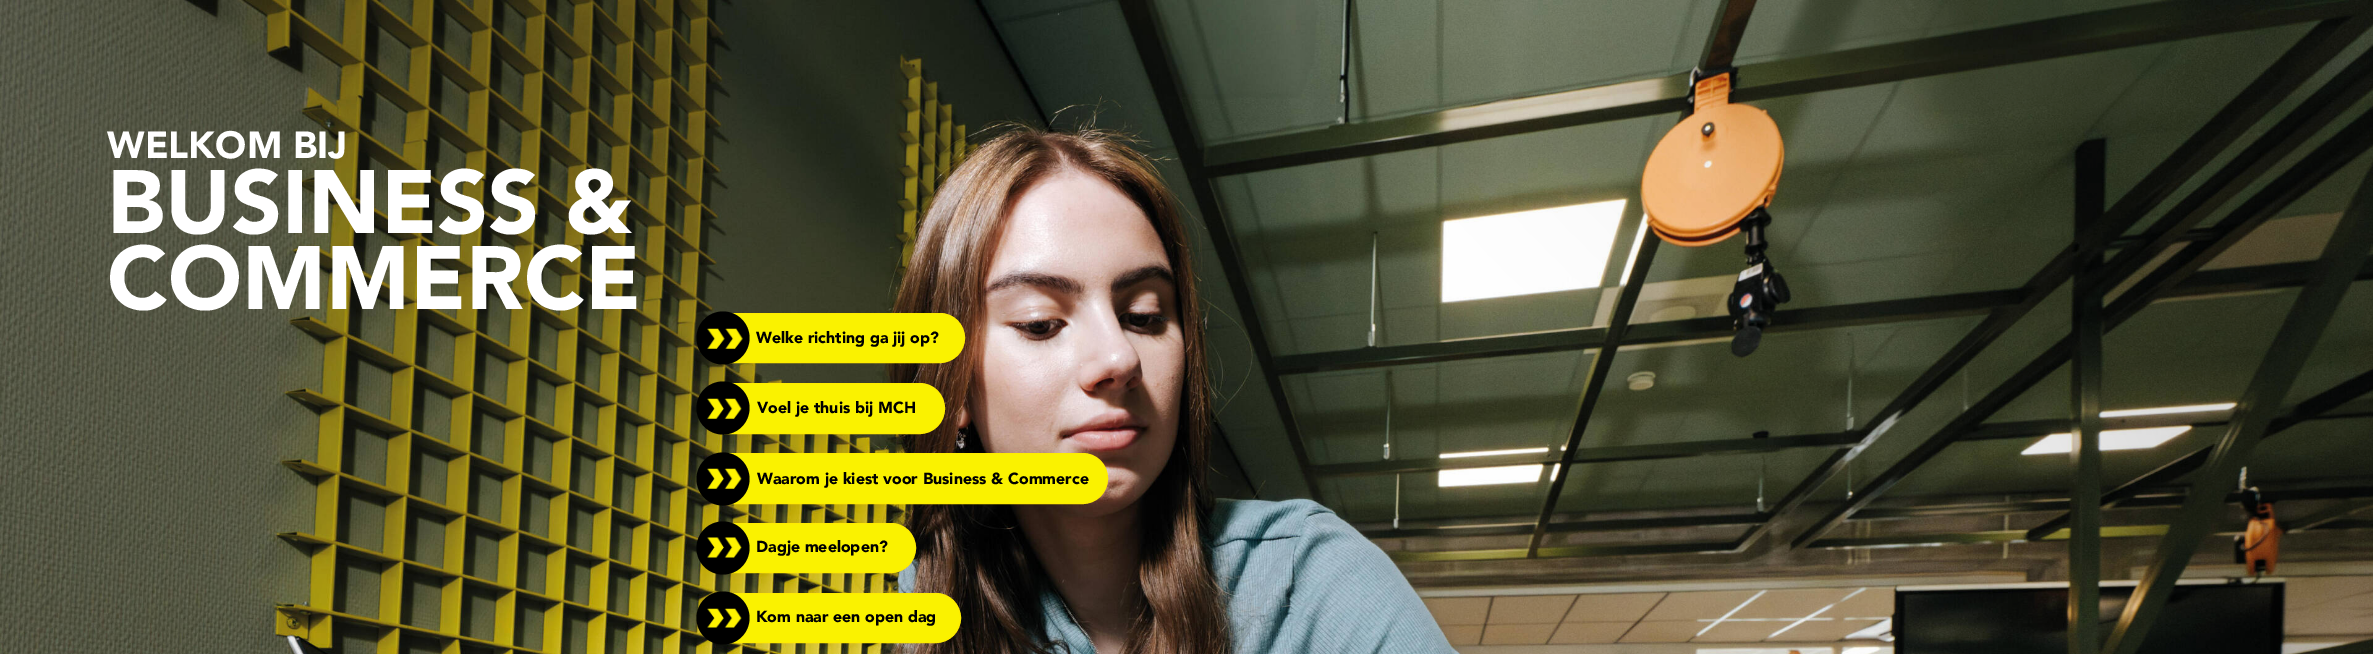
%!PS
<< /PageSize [2373 654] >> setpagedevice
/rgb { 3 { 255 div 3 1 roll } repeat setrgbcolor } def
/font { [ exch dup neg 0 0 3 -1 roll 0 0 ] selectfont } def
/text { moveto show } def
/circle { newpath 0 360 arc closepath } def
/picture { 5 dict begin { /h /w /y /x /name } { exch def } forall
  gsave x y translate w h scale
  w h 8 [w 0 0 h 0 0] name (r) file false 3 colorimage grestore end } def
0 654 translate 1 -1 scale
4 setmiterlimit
255 255 255 rgb
0 0 2373 654 rectfill
(img_01.rgb) 0 0 2373 654 picture
(img_02.rgb) 0 0 2373 654 picture
250 242 0 rgb
725.5 313.5 moveto 214.5 0 rlineto 13.5 0 24.5 11 24.5 24.5 rcurveto 0 13.5 -11 24.5 -24.5 24.5 rcurveto -214.5 0 rlineto closepath gsave fill grestore
255 236 0 rgb
stroke
0 0 0 rgb
723 338 26.5 circle fill
(img_03.rgb) 707 328 36 21 picture
250 242 0 rgb
724.5 383.5 moveto 195 0 rlineto 14 0 25 11 25 25 rcurveto 0 14 -11 25 -25 25 rcurveto -195 0 rlineto closepath gsave fill grestore
255 236 0 rgb
stroke
0 0 0 rgb
723 408 26.5 circle fill
(img_04.rgb) 707 398 35 21 picture
250 242 0 rgb
725.5 453.5 moveto 357 0 rlineto 14 0 25 11 25 25 rcurveto 0 14 -11 25 -25 25 rcurveto -357 0 rlineto closepath gsave fill grestore
255 236 0 rgb
stroke
0 0 0 rgb
723 479 26.5 circle fill
(img_04.rgb) 707 468 35 21 picture
250 242 0 rgb
724.5 523.5 moveto 166.5 0 rlineto 13.5 0 24.5 11 24.5 24.5 rcurveto 0 13.5 -11 24.5 -24.5 24.5 rcurveto -166.5 0 rlineto closepath gsave fill grestore
255 236 0 rgb
stroke
0 0 0 rgb
723 548 26.5 circle fill
(img_05.rgb) 707 537 35 21 picture
250 242 0 rgb
724.5 593.5 moveto 211.5 0 rlineto 13.5 0 24.5 11 24.5 24.5 rcurveto 0 13.5 -11 24.5 -24.5 24.5 rcurveto -211.5 0 rlineto closepath gsave fill grestore
255 236 0 rgb
stroke
0 0 0 rgb
723 618 26.5 circle fill
(img_06.rgb) 707 608 35 20 picture
/Avenir-Black 37.5 font
255 255 255 rgb
(WELKOM BIJ) 107 158 text
/Avenir-Black 89 font
(BUSINESS &) 107 233 text
(COMMERCE) 107 309 text
/Avenir-Black 15.9 font
0 0 0 rgb
(Welke richting ga jij op?) 756 343 text
(Voel je thuis bij MCH) 757 413 text
(Waarom je kiest voor Business & Commerce) 757 484 text
(Dagje meelopen?) 756 552 text
(Kom naar een open dag) 756 622 text
showpage
